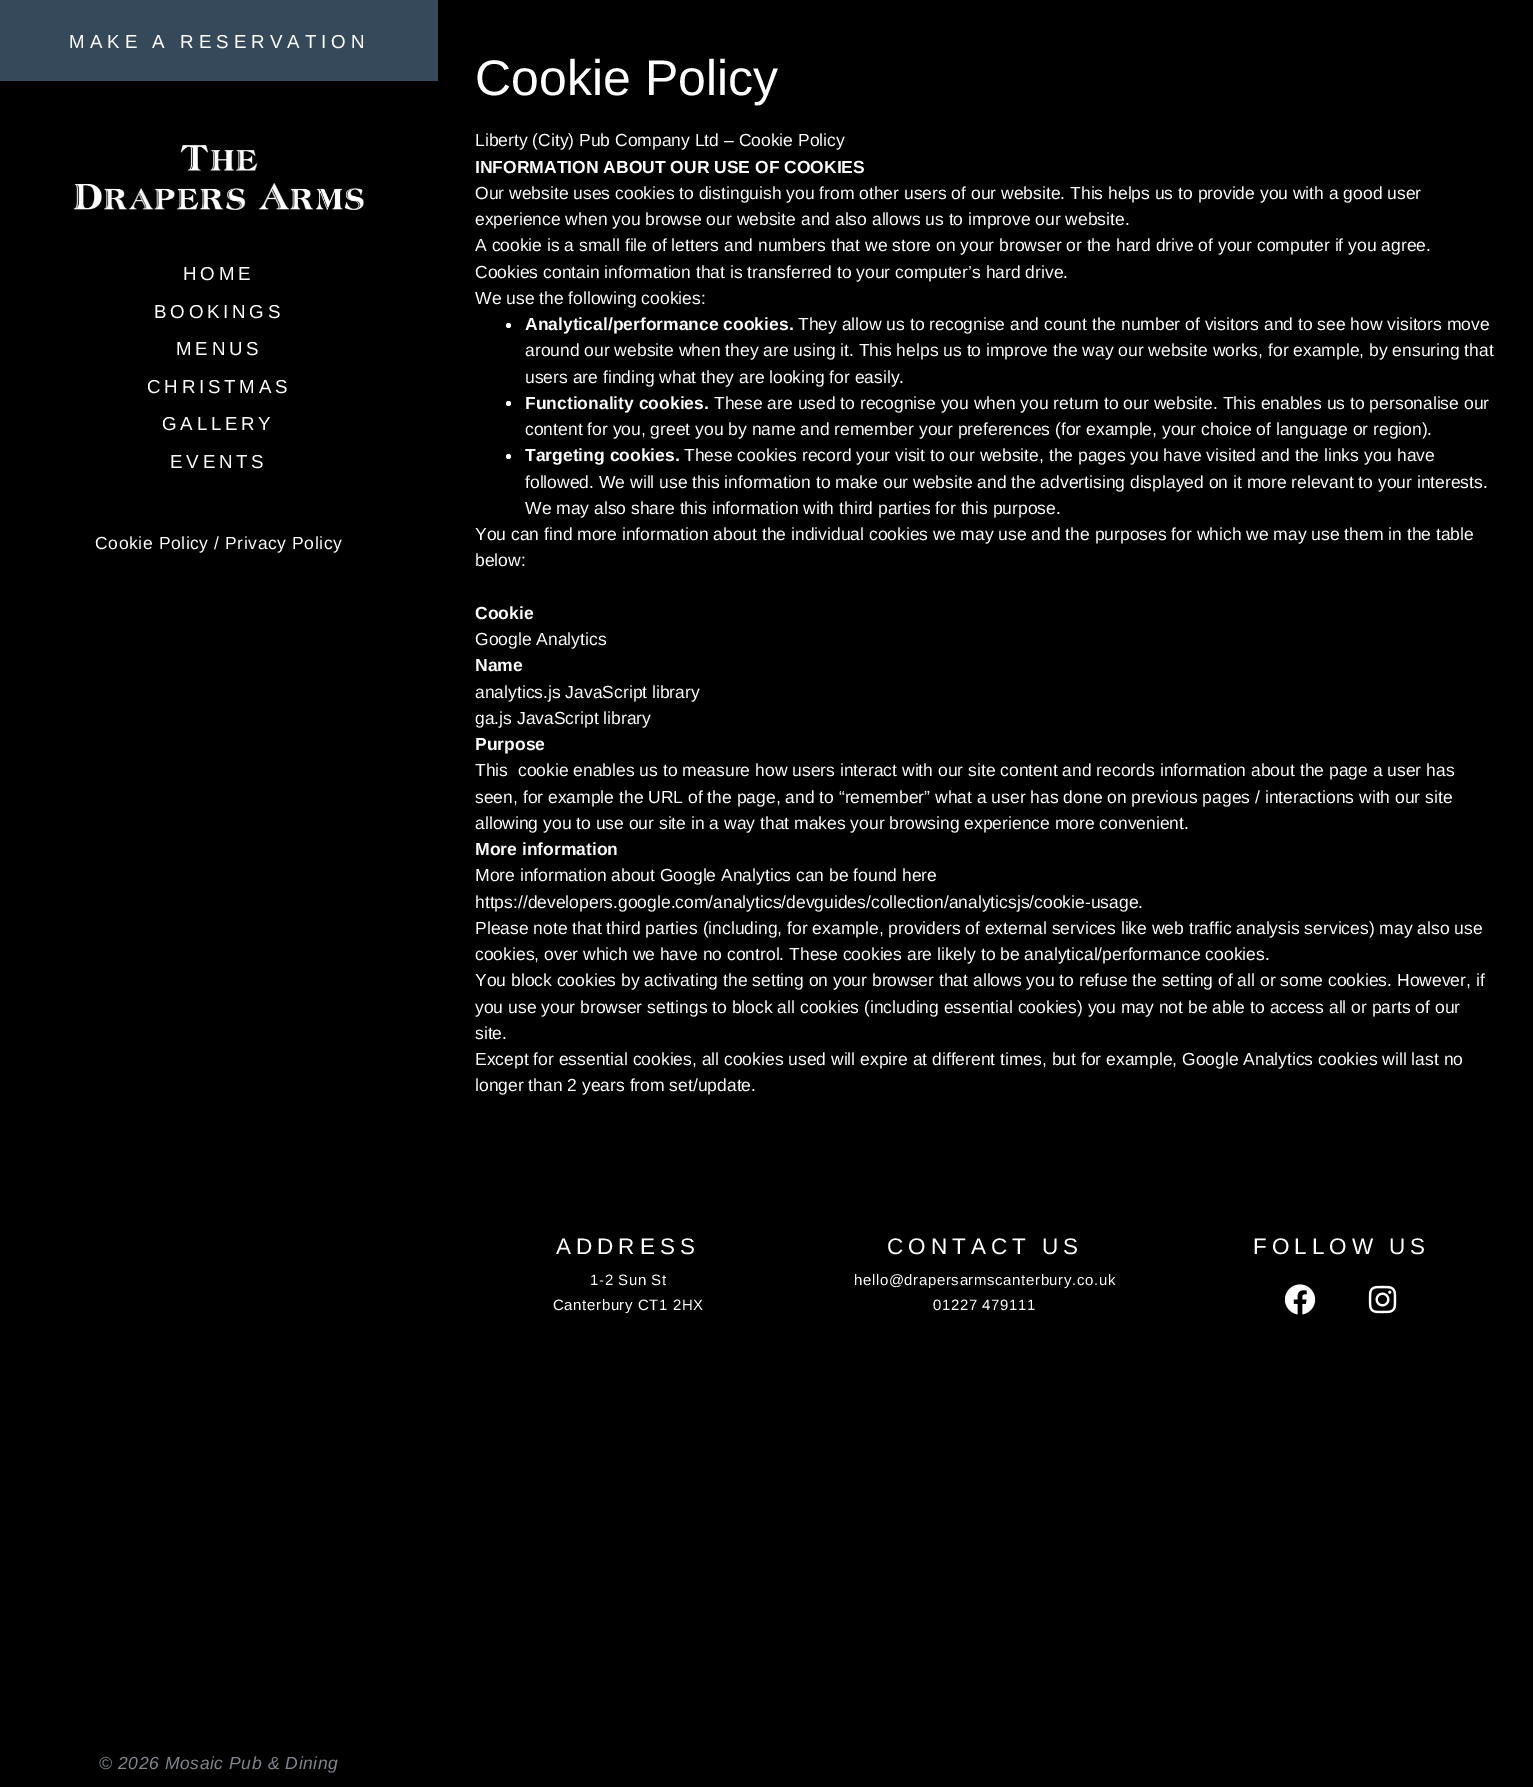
%!PS
<< /PageSize [1533 1787] >> setpagedevice
/rgb { 3 { 255 div 3 1 roll } repeat setrgbcolor } def
/font { [ exch dup neg 0 0 3 -1 roll 0 0 ] selectfont } def
/text { moveto show } def
/circle { newpath 0 360 arc closepath } def
/picture { 5 dict begin { /h /w /y /x /name } { exch def } forall
  gsave x y translate w h scale
  w h 8 [w 0 0 h 0 0] name (r) file false 3 colorimage grestore end } def
0 1787 translate 1 -1 scale
4 setmiterlimit
0 0 0 rgb
0 0 1533 1787 rectfill
54 73 90 rgb
0 0 438 81 rectfill
(img_01.rgb) 73 145 291 65 picture
255 255 255 rgb
508.5 325.5 2.5 circle fill
508.5 403.5 2.5 circle fill
508.5 456.5 2.5 circle fill
(img_02.rgb) 1284 1284 32 31 picture
(img_03.rgb) 1368 1285 29 29 picture
/LiberationSans-Regular 18.75 font
69 48 moveto 5 0 (MAKE A RESERVATION) ashow
183 280 moveto 3.75 0 (HOME) ashow
154 318 moveto 3.75 0 (BOOKINGS) ashow
176 355 moveto 3.75 0 (MENUS) ashow
147 393 moveto 3.75 0 (CHRISTMAS) ashow
162 430 moveto 3.75 0 (GALLERY) ashow
170 468 moveto 3.75 0 (EVENTS) ashow
/LiberationSans-Regular 17.5 font
95 549 moveto 0.6 0 (Cookie Policy / Privacy Policy) ashow
/LiberationSans-Italic 17.5 font
128 134 141 rgb
99 1769 moveto 0.6 0 (© 2026 Mosaic Pub & Dining) ashow
/LiberationSans-Regular 50 font
255 255 255 rgb
(Cookie Policy) 475 95 text
/LiberationSans-Regular 17.5 font
(Liberty \(City\) Pub Company Ltd – Cookie Policy) 475 146 text
/LiberationSans-Bold 17.5 font
(INFORMATION ABOUT OUR USE OF COOKIES) 475 173 text
/LiberationSans-Regular 17.5 font
(Our website uses cookies to distinguish you from other users of our website. This helps us to provide you with a good user) 475 199 text
(experience when you browse our website and also allows us to improve our website.) 475 225 text
(A cookie is a small file of letters and numbers that we store on your browser or the hard drive of your computer if you agree.) 475 251 text
(Cookies contain information that is transferred to your computer’s hard drive.) 475 278 text
(We use the following cookies:) 475 304 text
/LiberationSans-Bold 17.5 font
(Analytical/performance cookies.) 525 330 text
/LiberationSans-Regular 17.5 font
(They allow us to recognise and count the number of visitors and to see how visitors move) 798 330 text
(around our website when they are using it. This helps us to improve the way our website works, for example, by ensuring that) 525 356 text
(users are finding what they are looking for easily.) 525 383 text
/LiberationSans-Bold 17.5 font
(Functionality cookies.) 525 409 text
/LiberationSans-Regular 17.5 font
(These are used to recognise you when you return to our website. This enables us to personalise our) 714 409 text
(content for you, greet you by name and remember your preferences \(for example, your choice of language or region\).) 525 435 text
/LiberationSans-Bold 17.5 font
(Targeting cookies.) 525 461 text
/LiberationSans-Regular 17.5 font
(These cookies record your visit to our website, the pages you have visited and the links you have) 684 461 text
(followed. We will use this information to make our website and the advertising displayed on it more relevant to your interests.) 525 488 text
(We may also share this information with third parties for this purpose.) 525 514 text
(You can find more information about the individual cookies we may use and the purposes for which we may use them in the table) 475 540 text
(below:) 475 566 text
/LiberationSans-Bold 17.5 font
(Cookie) 475 619 text
/LiberationSans-Regular 17.5 font
(Google Analytics) 475 645 text
/LiberationSans-Bold 17.5 font
(Name) 475 671 text
/LiberationSans-Regular 17.5 font
(analytics.js JavaScript library) 475 698 text
(ga.js JavaScript library) 475 724 text
/LiberationSans-Bold 17.5 font
(Purpose) 475 750 text
/LiberationSans-Regular 17.5 font
(This  cookie enables us to measure how users interact with our site content and records information about the page a user has) 475 776 text
(seen, for example the URL of the page, and to “remember” what a user has done on previous pages / interactions with our site) 475 803 text
(allowing you to use our site in a way that makes your browsing experience more convenient.) 475 829 text
/LiberationSans-Bold 17.5 font
(More information) 475 855 text
/LiberationSans-Regular 17.5 font
(More information about Google Analytics can be found here) 475 881 text
(https://developers.google.com/analytics/devguides/collection/analyticsjs/cookie-usage.) 475 908 text
(Please note that third parties \(including, for example, providers of external services like web traffic analysis services\) may also use) 475 934 text
(cookies, over which we have no control. These cookies are likely to be analytical/performance cookies.) 475 960 text
(You block cookies by activating the setting on your browser that allows you to refuse the setting of all or some cookies. However, if) 475 986 text
(you use your browser settings to block all cookies \(including essential cookies\) you may not be able to access all or parts of our) 475 1013 text
(site.) 475 1039 text
(Except for essential cookies, all cookies used will expire at different times, but for example, Google Analytics cookies will last no) 475 1065 text
(longer than 2 years from set/update.) 475 1091 text
/LiberationSans-Regular 22.5 font
556 1254 moveto 5 0 (ADDRESS) ashow
/LiberationSans-Regular 15 font
590 1285 moveto 0.6 0 (1-2 Sun St) ashow
553 1310 moveto 0.6 0 (Canterbury CT1 2HX) ashow
/LiberationSans-Regular 22.5 font
887 1254 moveto 5 0 (CONTACT US) ashow
/LiberationSans-Regular 15 font
854 1285 moveto 0.6 0 (hello@drapersarmscanterbury.co.uk) ashow
933 1310 moveto 0.6 0 (01227 479111) ashow
/LiberationSans-Regular 22.5 font
1253 1254 moveto 5 0 (FOLLOW US) ashow
showpage
